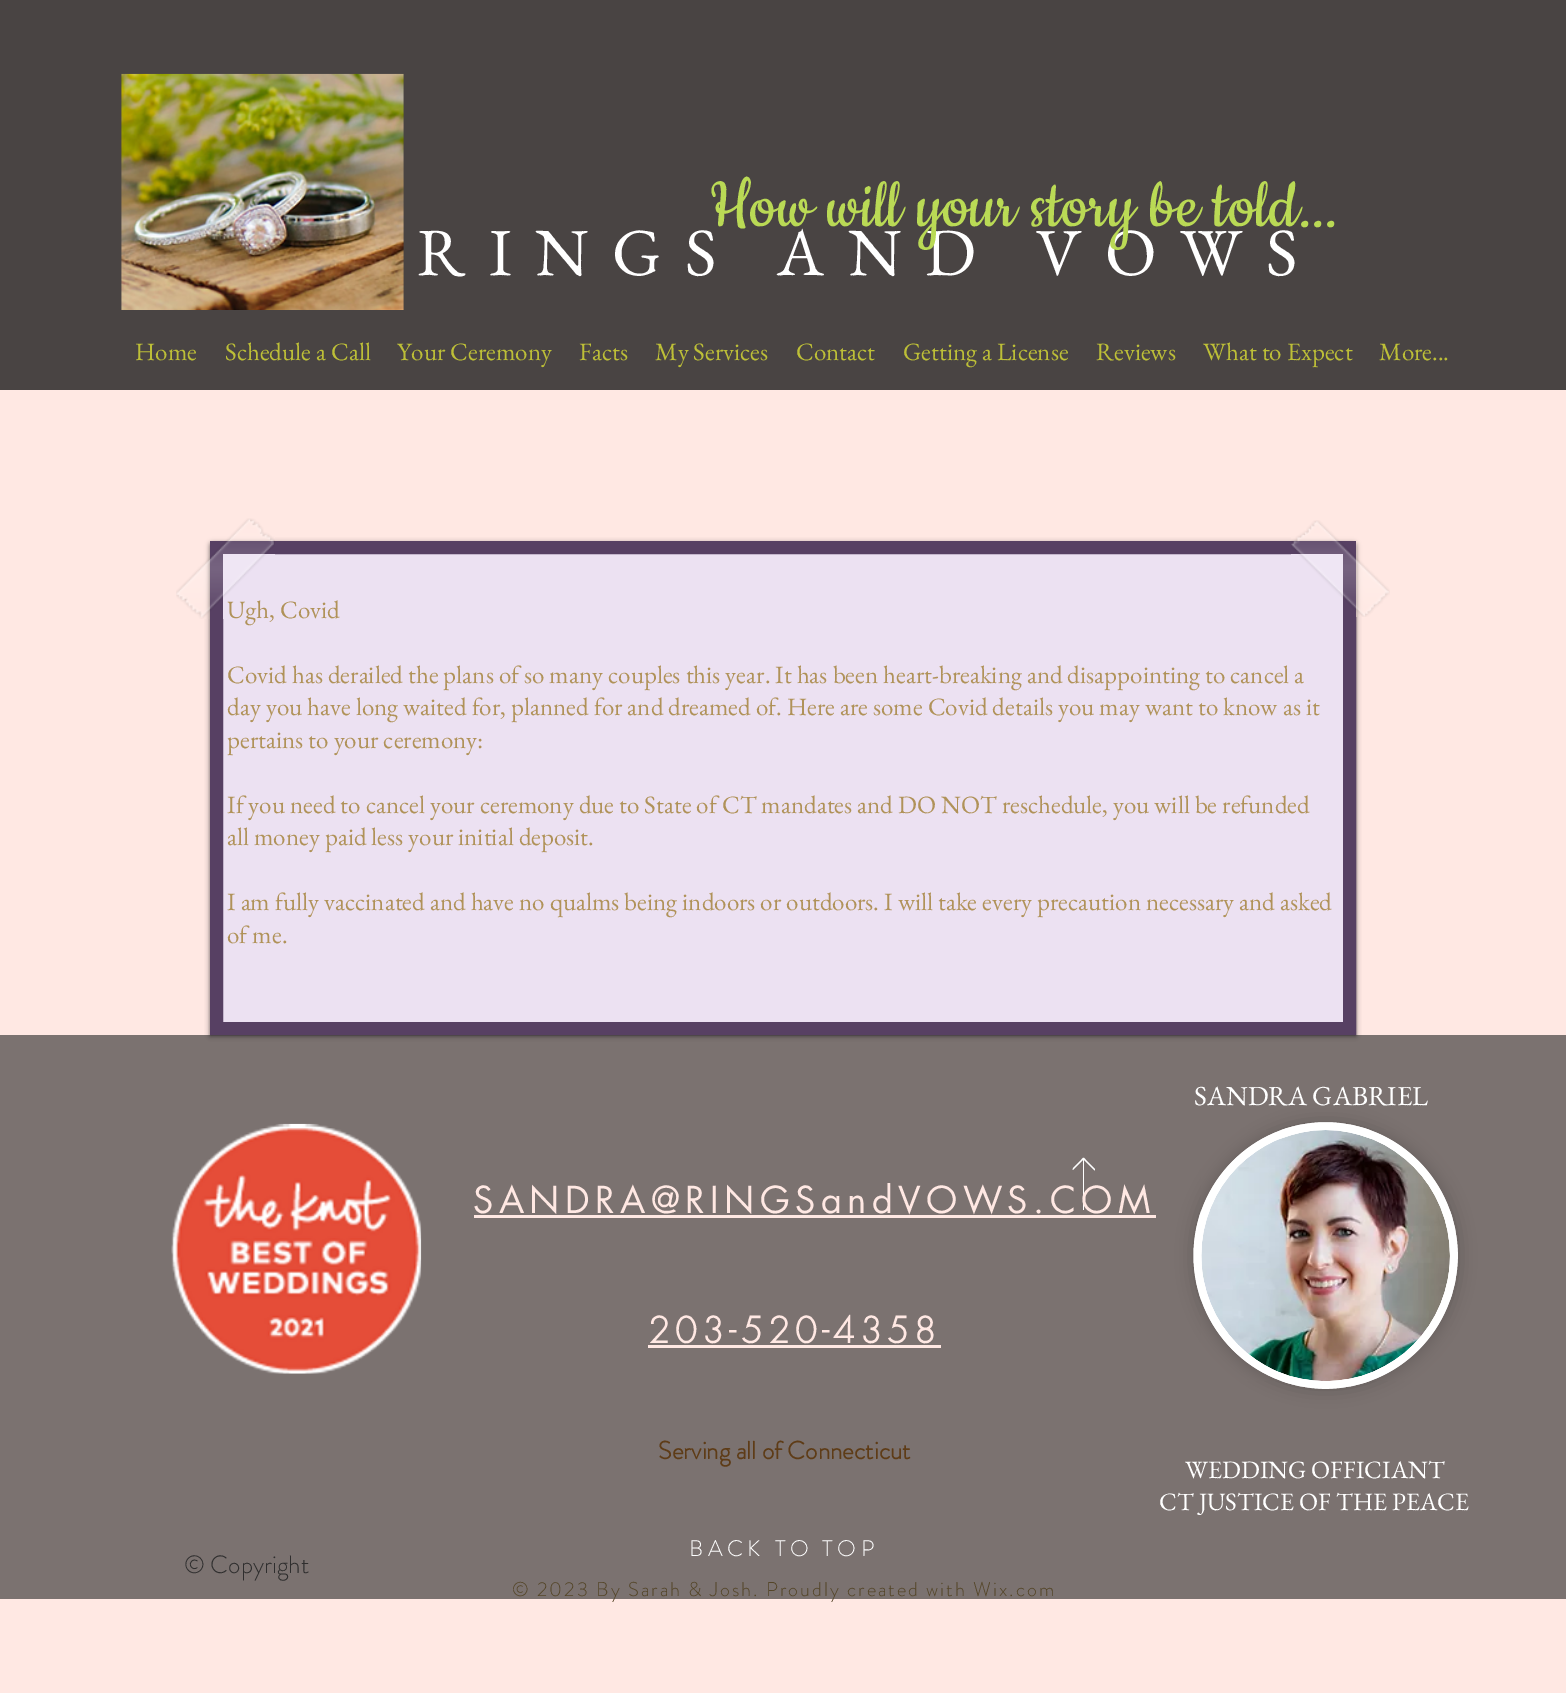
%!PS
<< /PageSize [1566 1693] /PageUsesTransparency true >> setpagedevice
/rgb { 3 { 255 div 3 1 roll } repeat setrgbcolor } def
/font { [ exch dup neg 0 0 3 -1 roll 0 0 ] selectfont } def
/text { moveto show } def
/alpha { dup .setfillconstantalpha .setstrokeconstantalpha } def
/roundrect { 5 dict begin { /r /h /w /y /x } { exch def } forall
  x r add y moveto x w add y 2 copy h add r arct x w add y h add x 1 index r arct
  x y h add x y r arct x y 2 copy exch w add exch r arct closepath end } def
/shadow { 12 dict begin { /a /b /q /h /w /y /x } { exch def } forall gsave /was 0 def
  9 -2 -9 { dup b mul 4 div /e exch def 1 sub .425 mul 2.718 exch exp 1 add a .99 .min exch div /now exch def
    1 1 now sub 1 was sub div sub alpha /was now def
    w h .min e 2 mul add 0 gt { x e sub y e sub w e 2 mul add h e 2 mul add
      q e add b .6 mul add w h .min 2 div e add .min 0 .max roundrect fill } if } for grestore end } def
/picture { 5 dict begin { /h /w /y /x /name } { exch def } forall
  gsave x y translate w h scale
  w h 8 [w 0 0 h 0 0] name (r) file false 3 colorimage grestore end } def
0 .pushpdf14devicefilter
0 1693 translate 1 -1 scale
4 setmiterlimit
255 232 227 rgb
0 0 1566 1693 rectfill
73 68 67 rgb
0 0 1566 390 rectfill
(img_01.rgb) 121 73 283 237 picture
0 0 0 rgb
210 543 1146 493 0 2.5 0.6 shadow
236 225 242 rgb
216.5 547.5 moveto 1133 0 rlineto 0 481 rlineto -1133 0 rlineto closepath gsave fill grestore
87 64 99 rgb
13 setlinewidth
stroke
(img_03.rgb) 1291 520 99 97 picture
0.6 alpha
35 35 35 rgb
0 1035 1566 564 rectfill
1 alpha
(img_04.rgb) 171 1123 251 251 picture
255 255 255 rgb
1095 1169 moveto -9 -9 rlineto -3 -3 -2 -3 -5 0 rcurveto -7 7 rlineto 0 0 -2 2 -1 3 rcurveto 10 -10 rlineto 0 49 rlineto 0 1 rlineto 1 0 rlineto 0 -50 rlineto 10 10 rlineto 1 1 1 -1 1 -1 rcurveto closepath fill
0 0 0 rgb
1194 1123 264 266 132 9 0.2 shadow
255 255 255 rgb
1325.5 1122.5 moveto 73 0 132 59.5 132 133 rcurveto 0 73.5 -59 133 -132 133 rcurveto -73 0 -132 -59.5 -132 -133 rcurveto 0 -73.5 59 -133 132 -133 rcurveto closepath fill
7.5 setlinewidth
1325.5 1126 moveto 71 0 128.5 58 128.5 129.5 rcurveto 0 71.5 -57.5 129.5 -128.5 129.5 rcurveto -70.5 0 -128 -58 -128 -129.5 rcurveto 0 -71.5 57.5 -129.5 128 -129.5 rcurveto closepath stroke
(img_05.rgb) 1201 1130 249 251 picture
255 232 227 rgb
474 1215 682 3 rectfill
648 1345 293 3 rectfill
/EBGaramond-Regular 67.5 font
255 255 255 rgb
417 275 moveto 23.6 0 (RINGS AND VOWS) ashow
/Cookie-Regular 75 font
186 218 85 rgb
(How will your story be told...) 709 226 text
/EBGaramond-Regular 25 font
189 191 55 rgb
(Home) 135 360 text
(Schedule a Call) 225 360 text
(Your Ceremony) 397 360 text
(Facts) 579 360 text
(My Services) 655 360 text
(Contact) 796 360 text
(Getting a License) 903 360 text
(Reviews) 1096 360 text
(What to Expect) 1203 360 text
(More...) 1379 360 text
176 146 89 rgb
(Ugh, Covid) 227 618 text
(img_02.rgb) 176 518 99 101 picture
(Covid has derailed the plans of so many couples this year. It has been heart-breaking and disappointing to cancel a) 227 683 text
(day you have long waited for, planned for and dreamed of. Here are some Covid details you may want to know as it) 227 715 text
(pertains to your ceremony:) 227 748 text
(If you need to cancel your ceremony due to State of CT mandates and DO NOT reschedule, you will be refunded) 227 813 text
(all money paid less your initial deposit.) 227 845 text
(I am fully vaccinated and have no qualms being indoors or outdoors. I will take every precaution necessary and asked) 227 910 text
(of me.) 227 943 text
/EBGaramond-Regular 27.5 font
255 255 255 rgb
(SANDRA GABRIEL) 1194 1105 text
/futura-Regular 36.25 font
255 232 227 rgb
473 1213 moveto 5.4 0 (SANDRA@RINGSandVOWS.COM) ashow
/futura-Bold 35 font
648 1343 moveto 5.25 0 (203-520-4358) ashow
/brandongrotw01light-Bold 25 font
94 60 23 rgb
(Serving all of Connecticut) 658 1459 text
/EBGaramond-Regular 25 font
255 255 255 rgb
(WEDDING OFFICIANT) 1185 1478 text
(CT JUSTICE OF THE PEACE) 1159 1510 text
/brandongrotw01light-Light 22.5 font
689 1556 moveto 4.5 0 (BACK TO TOP) ashow
/brandongrotw01light-Light 25 font
47 46 46 rgb
(© Copyright) 184 1573 text
/brandongrotw01light-Light 20 font
84 69 40 rgb
512 1596 moveto 2 0 (© 2023 By Sarah & Josh. Proudly created with Wix.com) ashow
.poppdf14devicefilter showpage
